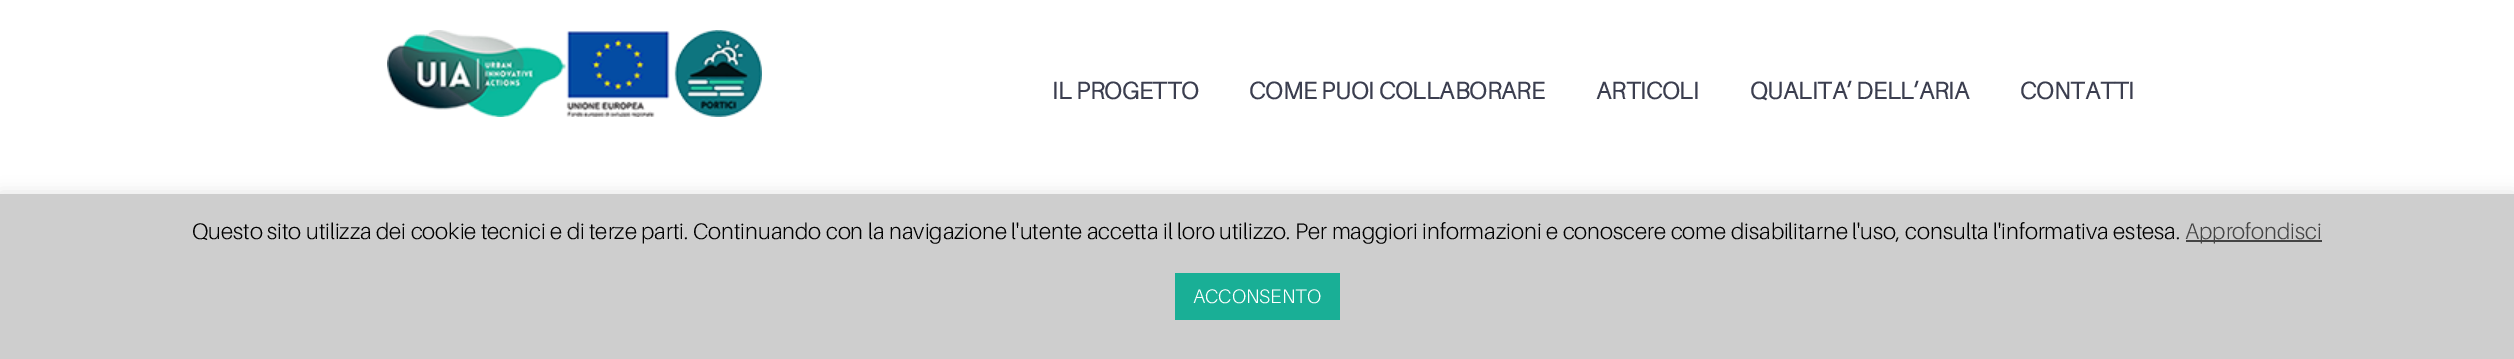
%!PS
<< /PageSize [2514 359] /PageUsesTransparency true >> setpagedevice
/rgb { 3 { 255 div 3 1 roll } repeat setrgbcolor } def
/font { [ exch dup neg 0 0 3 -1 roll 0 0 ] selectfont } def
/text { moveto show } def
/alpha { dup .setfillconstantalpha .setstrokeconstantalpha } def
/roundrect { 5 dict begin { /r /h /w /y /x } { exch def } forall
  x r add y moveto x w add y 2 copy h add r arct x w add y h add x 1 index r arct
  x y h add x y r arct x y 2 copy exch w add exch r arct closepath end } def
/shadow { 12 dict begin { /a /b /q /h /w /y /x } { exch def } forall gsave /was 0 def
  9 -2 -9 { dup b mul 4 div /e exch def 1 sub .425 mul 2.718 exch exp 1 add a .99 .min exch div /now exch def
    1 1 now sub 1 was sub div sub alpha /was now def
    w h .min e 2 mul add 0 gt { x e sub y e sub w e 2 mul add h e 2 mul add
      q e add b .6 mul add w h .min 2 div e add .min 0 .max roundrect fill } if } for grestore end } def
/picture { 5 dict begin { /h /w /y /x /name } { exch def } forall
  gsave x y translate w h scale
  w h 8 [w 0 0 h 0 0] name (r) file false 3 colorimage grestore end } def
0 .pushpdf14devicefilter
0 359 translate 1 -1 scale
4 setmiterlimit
255 255 255 rgb
0 0 2514 359 rectfill
(img_01.rgb) 387 30 375 87 picture
172 171 171 rgb
0 192 2514 167 0 7.5 0.3 shadow
206 206 206 rgb
0 194 2514 165 rectfill
68 68 68 rgb
2186 240 136 2 rectfill
25 175 150 rgb
1175 273 165 47 rectfill
/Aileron-Bold 24 font
59 62 79 rgb
(IL PROGETTO) 1052 99 text
(COME PUOI COLLABORARE) 1249 99 text
(ARTICOLI) 1596 99 text
(QUALITA’ DELL’ARIA) 1750 99 text
(CONTATTI) 2020 99 text
/Aileron-Light 22.5 font
0 0 0 rgb
(Questo sito utilizza dei cookie tecnici e di terze parti. Continuando con la navigazione l'utente accetta il loro utilizzo. Per maggiori informazioni e conoscere come disabilitarne l'uso, consulta l'informativa estesa.) 192 239 text
68 68 68 rgb
(Approfondisci) 2185 239 text
/Aileron-Light 19.5 font
255 255 255 rgb
(ACCONSENTO) 1193 303 text
.poppdf14devicefilter showpage
